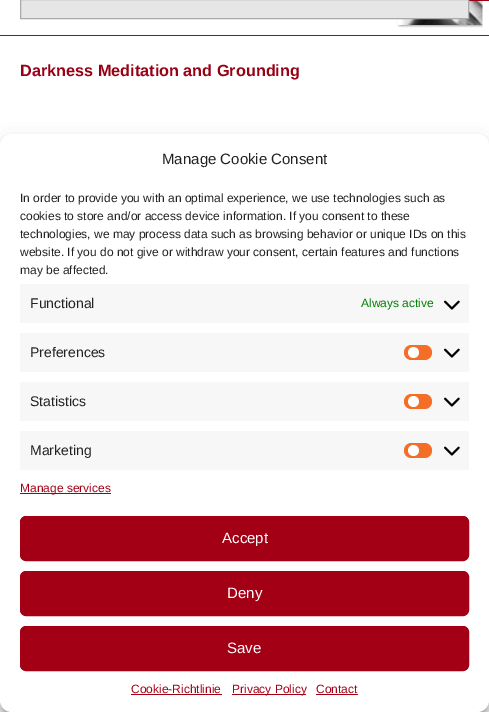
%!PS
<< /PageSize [489 712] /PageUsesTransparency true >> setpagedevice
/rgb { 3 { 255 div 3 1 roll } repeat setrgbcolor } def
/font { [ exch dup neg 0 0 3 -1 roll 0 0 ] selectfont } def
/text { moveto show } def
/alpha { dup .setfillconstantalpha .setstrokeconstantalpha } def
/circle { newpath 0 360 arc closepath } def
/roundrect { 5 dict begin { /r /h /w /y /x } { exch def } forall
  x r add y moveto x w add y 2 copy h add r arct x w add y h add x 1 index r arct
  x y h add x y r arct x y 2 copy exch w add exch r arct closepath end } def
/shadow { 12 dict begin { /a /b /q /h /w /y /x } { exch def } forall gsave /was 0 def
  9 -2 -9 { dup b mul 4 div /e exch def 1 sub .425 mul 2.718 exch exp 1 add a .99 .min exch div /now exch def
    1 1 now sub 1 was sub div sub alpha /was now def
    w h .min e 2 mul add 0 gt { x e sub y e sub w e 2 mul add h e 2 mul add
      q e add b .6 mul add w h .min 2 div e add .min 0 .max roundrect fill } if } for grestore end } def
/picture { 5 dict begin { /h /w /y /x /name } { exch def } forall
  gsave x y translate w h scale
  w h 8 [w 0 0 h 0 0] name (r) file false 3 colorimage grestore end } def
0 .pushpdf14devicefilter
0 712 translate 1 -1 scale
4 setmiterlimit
255 255 255 rgb
0 0 489 712 rectfill
(img_01.rgb) 0 0 489 36 picture
230 230 230 rgb
20.5 -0.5 moveto 448 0 rlineto 0 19 rlineto -448 0 rlineto closepath gsave fill grestore
170 170 170 rgb
stroke
0 0 0 rgb
0 140 489 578 12 3 0.23 shadow
0 144 489 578 12 10 0.19 shadow
255 255 255 rgb
0 134 489 578 12 roundrect fill
247 247 247 rgb
20 284 449 39 rectfill
(img_02.rgb) 444 300 16 10 picture
20 333 449 39 rectfill
245 110 40 rgb
404 345 28 15 7.5 roundrect fill
255 255 255 rgb
413.5 352.5 5.5 circle fill
(img_02.rgb) 444 348 16 10 picture
247 247 247 rgb
20 382 449 39 rectfill
245 110 40 rgb
404 394 28 15 7.5 roundrect fill
255 255 255 rgb
413.5 401.5 5.5 circle fill
(img_02.rgb) 444 397 16 10 picture
247 247 247 rgb
20 431 449 39 rectfill
245 110 40 rgb
404 443 28 15 7.5 roundrect fill
255 255 255 rgb
413.5 450.5 5.5 circle fill
(img_02.rgb) 444 446 16 10 picture
164 0 21 rgb
20 493 91 1 rectfill
20.5 516.5 448 44 5.5 roundrect gsave fill grestore
stroke
20.5 571.5 448 44 5.5 roundrect gsave fill grestore
stroke
20.5 626.5 448 44 5.5 roundrect gsave fill grestore
stroke
131 694 91 1 rectfill
232 694 74 1 rectfill
316 694 42 1 rectfill
/LiberationSans-Bold 16.25 font
152 0 20 rgb
(Darkness Meditation and Grounding) 20 76 text
/LiberationSans-Regular 15 font
34 34 34 rgb
(Manage Cookie Consent) 162 164 text
/LiberationSans-Regular 12 font
(In order to provide you with an optimal experience, we use technologies such as) 20 202 text
(cookies to store and/or access device information. If you consent to these) 20 220 text
(technologies, we may process data such as browsing behavior or unique IDs on this) 20 238 text
(website. If you do not give or withdraw your consent, certain features and functions) 20 256 text
(may be affected.) 20 274 text
/LiberationSans-Regular 14 font
(Functional) 30 308 text
/LiberationSans-Regular 12 font
0 128 0 rgb
(Always active) 361 307 text
/LiberationSans-Regular 14 font
34 34 34 rgb
(Preferences) 30 357 text
(Statistics) 30 406 text
(Marketing) 30 455 text
/LiberationSans-Regular 12 font
164 0 21 rgb
(Manage services) 20 492 text
/LiberationSans-Regular 15 font
255 255 255 rgb
(Accept) 222 543 text
(Deny) 227 598 text
(Save) 227 653 text
/LiberationSans-Regular 12 font
164 0 21 rgb
(Cookie-Richtlinie) 131 693 text
(Privacy Policy) 232 693 text
(Contact) 316 693 text
.poppdf14devicefilter showpage
